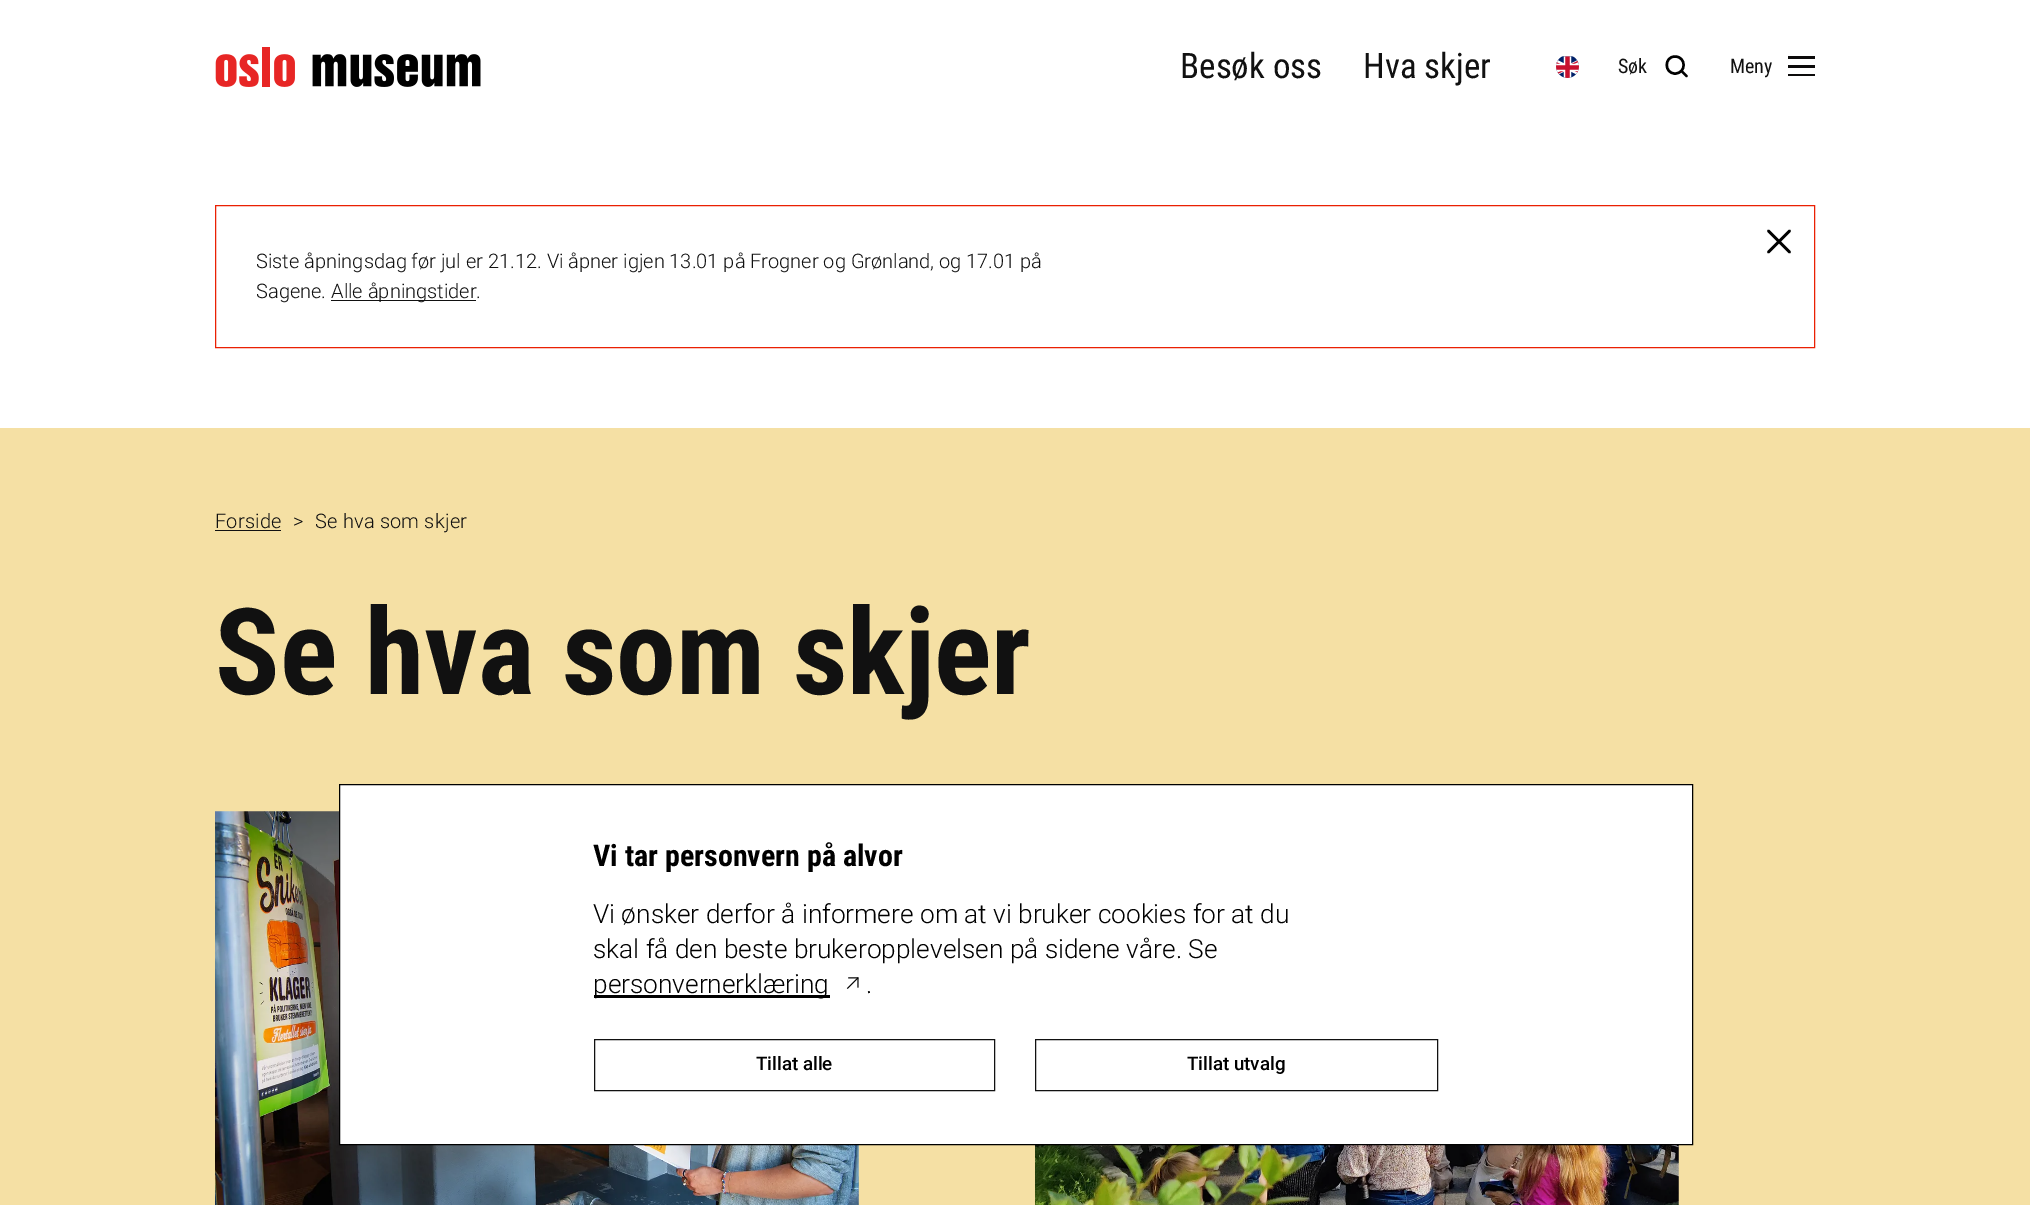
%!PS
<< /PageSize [2030 1205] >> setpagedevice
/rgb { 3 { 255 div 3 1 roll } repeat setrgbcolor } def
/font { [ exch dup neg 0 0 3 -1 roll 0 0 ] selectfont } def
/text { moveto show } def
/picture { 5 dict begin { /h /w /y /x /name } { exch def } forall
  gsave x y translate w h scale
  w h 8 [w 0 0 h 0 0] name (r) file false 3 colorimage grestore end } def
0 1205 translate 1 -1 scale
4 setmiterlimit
255 255 255 rgb
0 0 2030 1205 rectfill
(img_01.rgb) 215 47 266 40 picture
(img_02.rgb) 1556 56 23 22 picture
0 0 0 rgb
2.4 setlinewidth
1 setlinecap
1 setlinejoin
1675 73.5 moveto 11.5 0 11.5 -17 0 -17 rcurveto -11 0 -11 17 0 17 rcurveto closepath 1681.5 71 moveto 5 5 rlineto stroke
12 11 11 rgb
1788 56 27 3 rectfill
1788 65 27 3 rectfill
1788 74 27 2 rectfill
234 32 3 rgb
1 setlinewidth
0 setlinecap
0 setlinejoin
215.5 205.5 1599 142 rectstroke
0 0 0 rgb
2.5 setlinewidth
1 setlinecap
1 setlinejoin
1768.5 252 moveto 21 -21 rlineto 1768.5 231 moveto 21 21 rlineto stroke
17 17 17 rgb
331 300 145 1 rectfill
245 224 164 rgb
0 428 2030 777 rectfill
17 17 17 rgb
215 530 66 1 rectfill
(img_03.rgb) 215 811 644 394 picture
(img_04.rgb) 1035 1145 644 60 picture
255 255 255 rgb
339.5 784.5 moveto 1353 0 rlineto 0 360 rlineto -1353 0 rlineto closepath gsave fill grestore
0 0 0 rgb
1 setlinewidth
0 setlinecap
0 setlinejoin
stroke
594 995 236 3 rectfill
(img_05.rgb) 846 977 13 12 picture
17 17 17 rgb
594.5 1039.5 400 51 rectstroke
1035.5 1039.5 402 51 rectstroke
/RobotoCondensed-Regular 35 font
(Besøk oss) 1180 78 text
(Hva skjer) 1363 78 text
/RobotoCondensed-Regular 20 font
(Søk) 1618 73 text
(Meny) 1730 73 text
/Roboto-Light 20 font
(Siste åpningsdag før jul er 21.12. Vi åpner igjen 13.01 på Frogner og Grønland, og 17.01 på) 256 268 text
(Sagene.) 256 298 text
(Alle åpningstider.) 331 298 text
215 528 moveto 0.2 0 (Forside) ashow
293 528 moveto 0.2 0 (>) ashow
315 528 moveto 0.2 0 (Se hva som skjer) ashow
/RobotoCondensed-Bold 120 font
(Se hva som skjer) 215 694 text
/RobotoCondensed-Bold 30 font
0 0 0 rgb
(Vi tar personvern på alvor) 593 866 text
/Roboto-Light 26.25 font
(Vi ønsker derfor å informere om at vi bruker cookies for at du) 593 923 text
(skal få den beste brukeropplevelsen på sidene våre. Se) 593 958 text
(personvernerklæring) 593 993 text
(.) 866 993 text
/Roboto-Medium 18.75 font
(Tillat alle) 756 1070 text
(Tillat utvalg) 1187 1070 text
showpage
